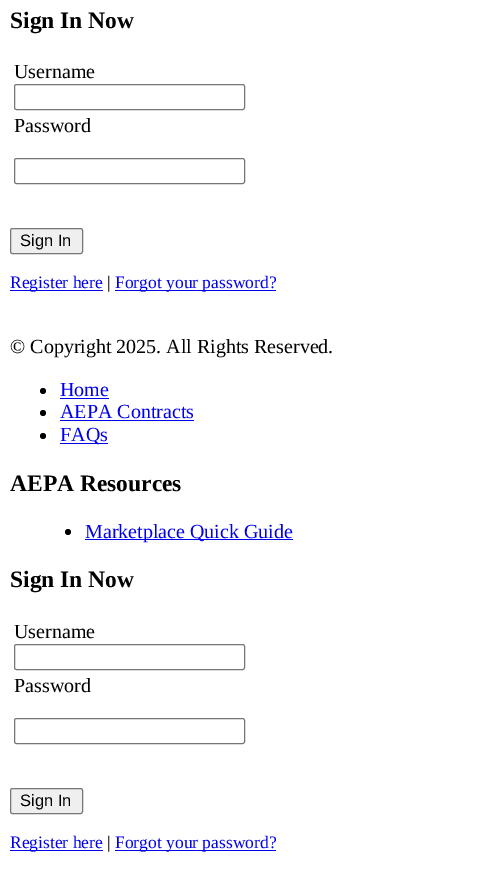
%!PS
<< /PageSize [478 873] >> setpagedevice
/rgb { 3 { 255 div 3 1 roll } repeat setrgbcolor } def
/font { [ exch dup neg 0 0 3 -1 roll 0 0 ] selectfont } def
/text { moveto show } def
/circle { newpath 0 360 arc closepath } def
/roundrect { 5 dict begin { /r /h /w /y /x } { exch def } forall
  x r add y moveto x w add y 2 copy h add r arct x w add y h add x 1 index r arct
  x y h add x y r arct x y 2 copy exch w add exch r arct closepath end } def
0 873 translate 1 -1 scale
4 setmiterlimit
255 255 255 rgb
0 0 478 873 rectfill
118 118 118 rgb
14.5 84.5 230 25 2 roundrect stroke
14.5 158.5 230 25 2 roundrect stroke
239 239 239 rgb
10.5 228.5 72 25 2 roundrect gsave fill grestore
118 118 118 rgb
stroke
0 0 238 rgb
10 290 93 1 rectfill
115 290 161 1 rectfill
0 0 0 rgb
43 391 3 circle fill
0 0 238 rgb
60 398 49 1 rectfill
0 0 0 rgb
43 413 3 circle fill
0 0 238 rgb
60 420 134 1 rectfill
0 0 0 rgb
43 436 3 circle fill
0 0 238 rgb
60 443 48 1 rectfill
0 0 0 rgb
68 532 3 circle fill
0 0 238 rgb
85 539 208 1 rectfill
118 118 118 rgb
14.5 644.5 230 25 2 roundrect stroke
14.5 718.5 230 25 2 roundrect stroke
239 239 239 rgb
10.5 788.5 72 25 2 roundrect gsave fill grestore
118 118 118 rgb
stroke
0 0 238 rgb
10 850 93 1 rectfill
115 850 161 1 rectfill
/LiberationSerif-Bold 23.5 font
0 0 0 rgb
(Sign In Now) 10 28 text
/LiberationSerif-Regular 20 font
(Username) 14 78 text
(Password) 14 132 text
/LiberationSans-Regular 16.5 font
(Sign In) 20 246 text
/LiberationSerif-Regular 17.5 font
0 0 238 rgb
(Register here) 10 288 text
0 0 0 rgb
(|) 107 288 text
0 0 238 rgb
(Forgot your password?) 115 288 text
/LiberationSerif-Regular 20 font
0 0 0 rgb
(© Copyright 2025. All Rights Reserved.) 10 353 text
0 0 238 rgb
(Home) 60 396 text
(AEPA Contracts) 60 418 text
(FAQs) 60 441 text
/LiberationSerif-Bold 23.5 font
0 0 0 rgb
(AEPA Resources) 10 491 text
/LiberationSerif-Regular 20 font
0 0 238 rgb
(Marketplace Quick Guide) 85 538 text
/LiberationSerif-Bold 23.5 font
0 0 0 rgb
(Sign In Now) 10 587 text
/LiberationSerif-Regular 20 font
(Username) 14 638 text
(Password) 14 692 text
/LiberationSans-Regular 16.5 font
(Sign In) 20 806 text
/LiberationSerif-Regular 17.5 font
0 0 238 rgb
(Register here) 10 848 text
0 0 0 rgb
(|) 107 848 text
0 0 238 rgb
(Forgot your password?) 115 848 text
showpage
